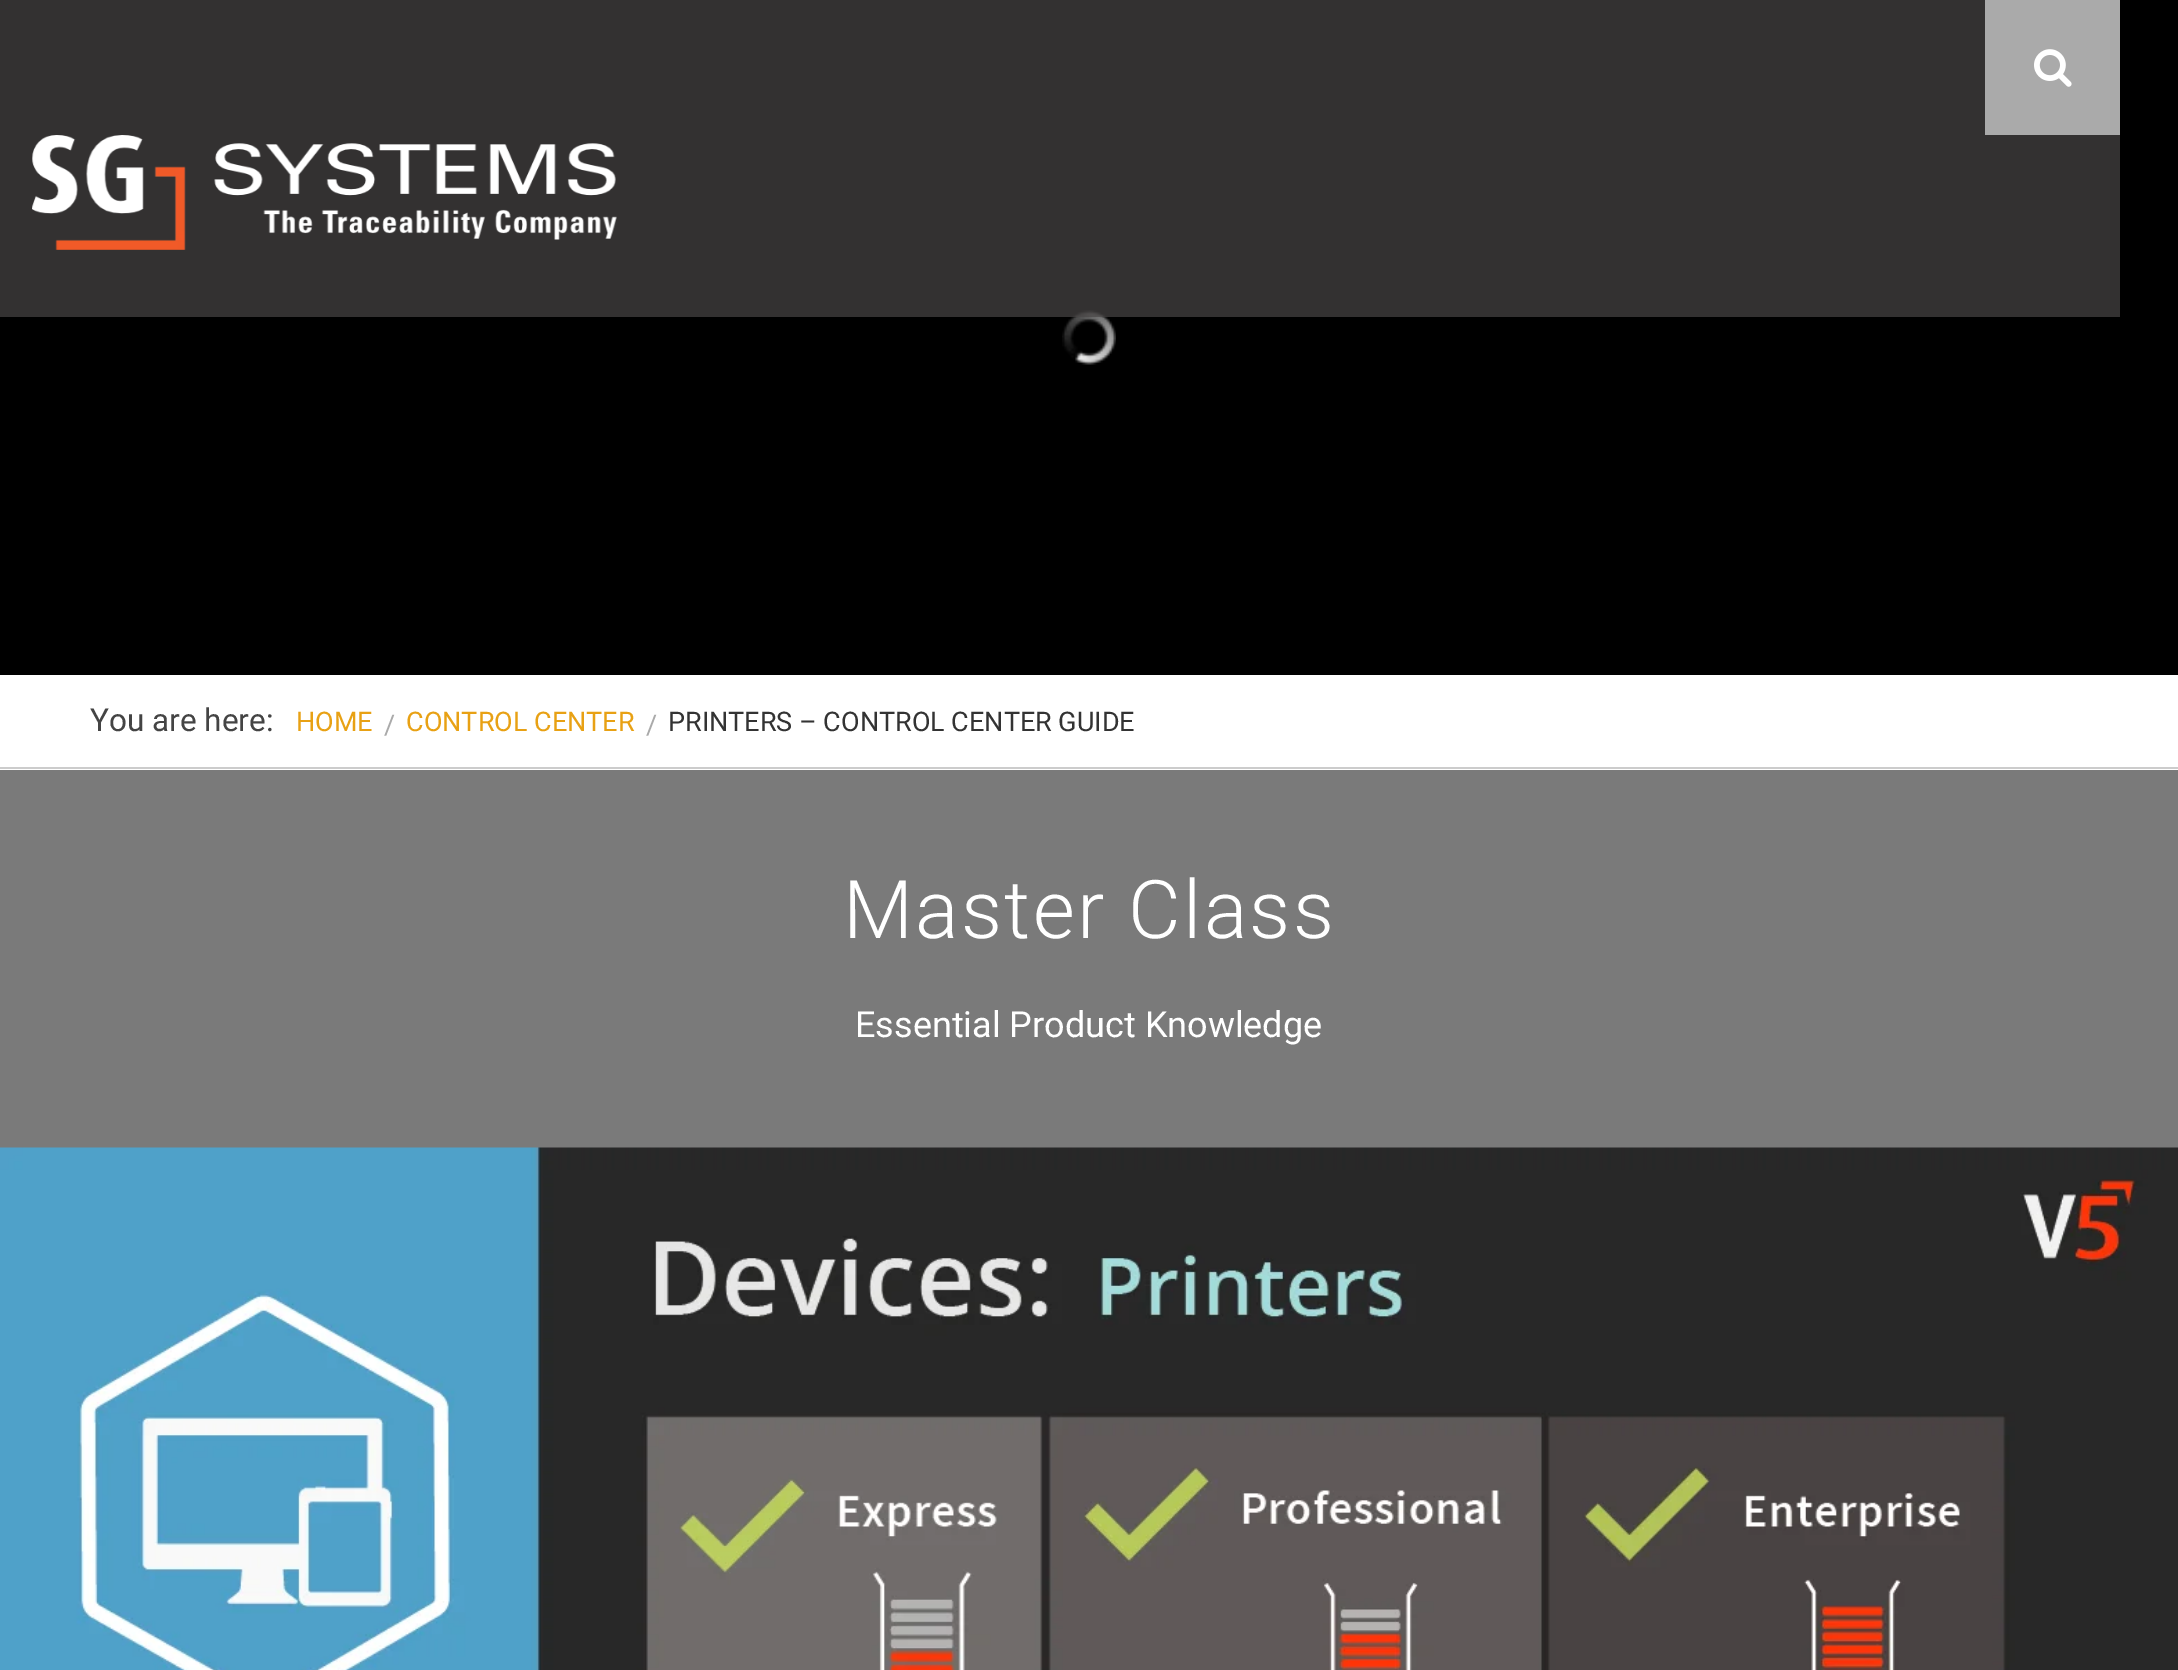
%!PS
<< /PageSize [2178 1670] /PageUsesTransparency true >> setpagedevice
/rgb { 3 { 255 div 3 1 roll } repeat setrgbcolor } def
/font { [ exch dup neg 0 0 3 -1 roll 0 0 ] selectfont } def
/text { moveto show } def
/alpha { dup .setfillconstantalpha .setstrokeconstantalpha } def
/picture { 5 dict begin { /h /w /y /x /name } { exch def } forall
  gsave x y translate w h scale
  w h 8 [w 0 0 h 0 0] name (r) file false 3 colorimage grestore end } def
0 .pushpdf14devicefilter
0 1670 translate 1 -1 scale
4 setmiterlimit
122 122 122 rgb
0 0 2178 1670 rectfill
0 0 0 rgb
0 0 2178 675 rectfill
(img_01.rgb) 1062 310 54 55 picture
0.7 alpha
73 70 70 rgb
0 0 2120 317 rectfill
1 alpha
170 170 170 rgb
1985 0 135 135 rectfill
(img_02.rgb) 2034 49 38 38 picture
(img_03.rgb) 32 135 585 115 picture
255 255 255 rgb
0 675 2178 95 rectfill
204 204 204 rgb
0 767 2178 2 rectfill
(img_04.rgb) 0 1147 2178 523 picture
/Roboto-Regular 31.5 font
68 68 68 rgb
(You are here:) 90 731 text
/Roboto-Regular 27 font
232 161 20 rgb
(HOME) 296 731 text
170 170 170 rgb
(/) 384 734 text
232 161 20 rgb
(CONTROL CENTER) 406 731 text
170 170 170 rgb
(/) 646 734 text
51 51 51 rgb
(PRINTERS – CONTROL CENTER GUIDE) 668 731 text
/Roboto-Light 81 font
255 255 255 rgb
843 938 moveto 2.25 0 (Master Class) ashow
/Roboto-Regular 36 font
(Essential Product Knowledge) 855 1037 text
.poppdf14devicefilter showpage
